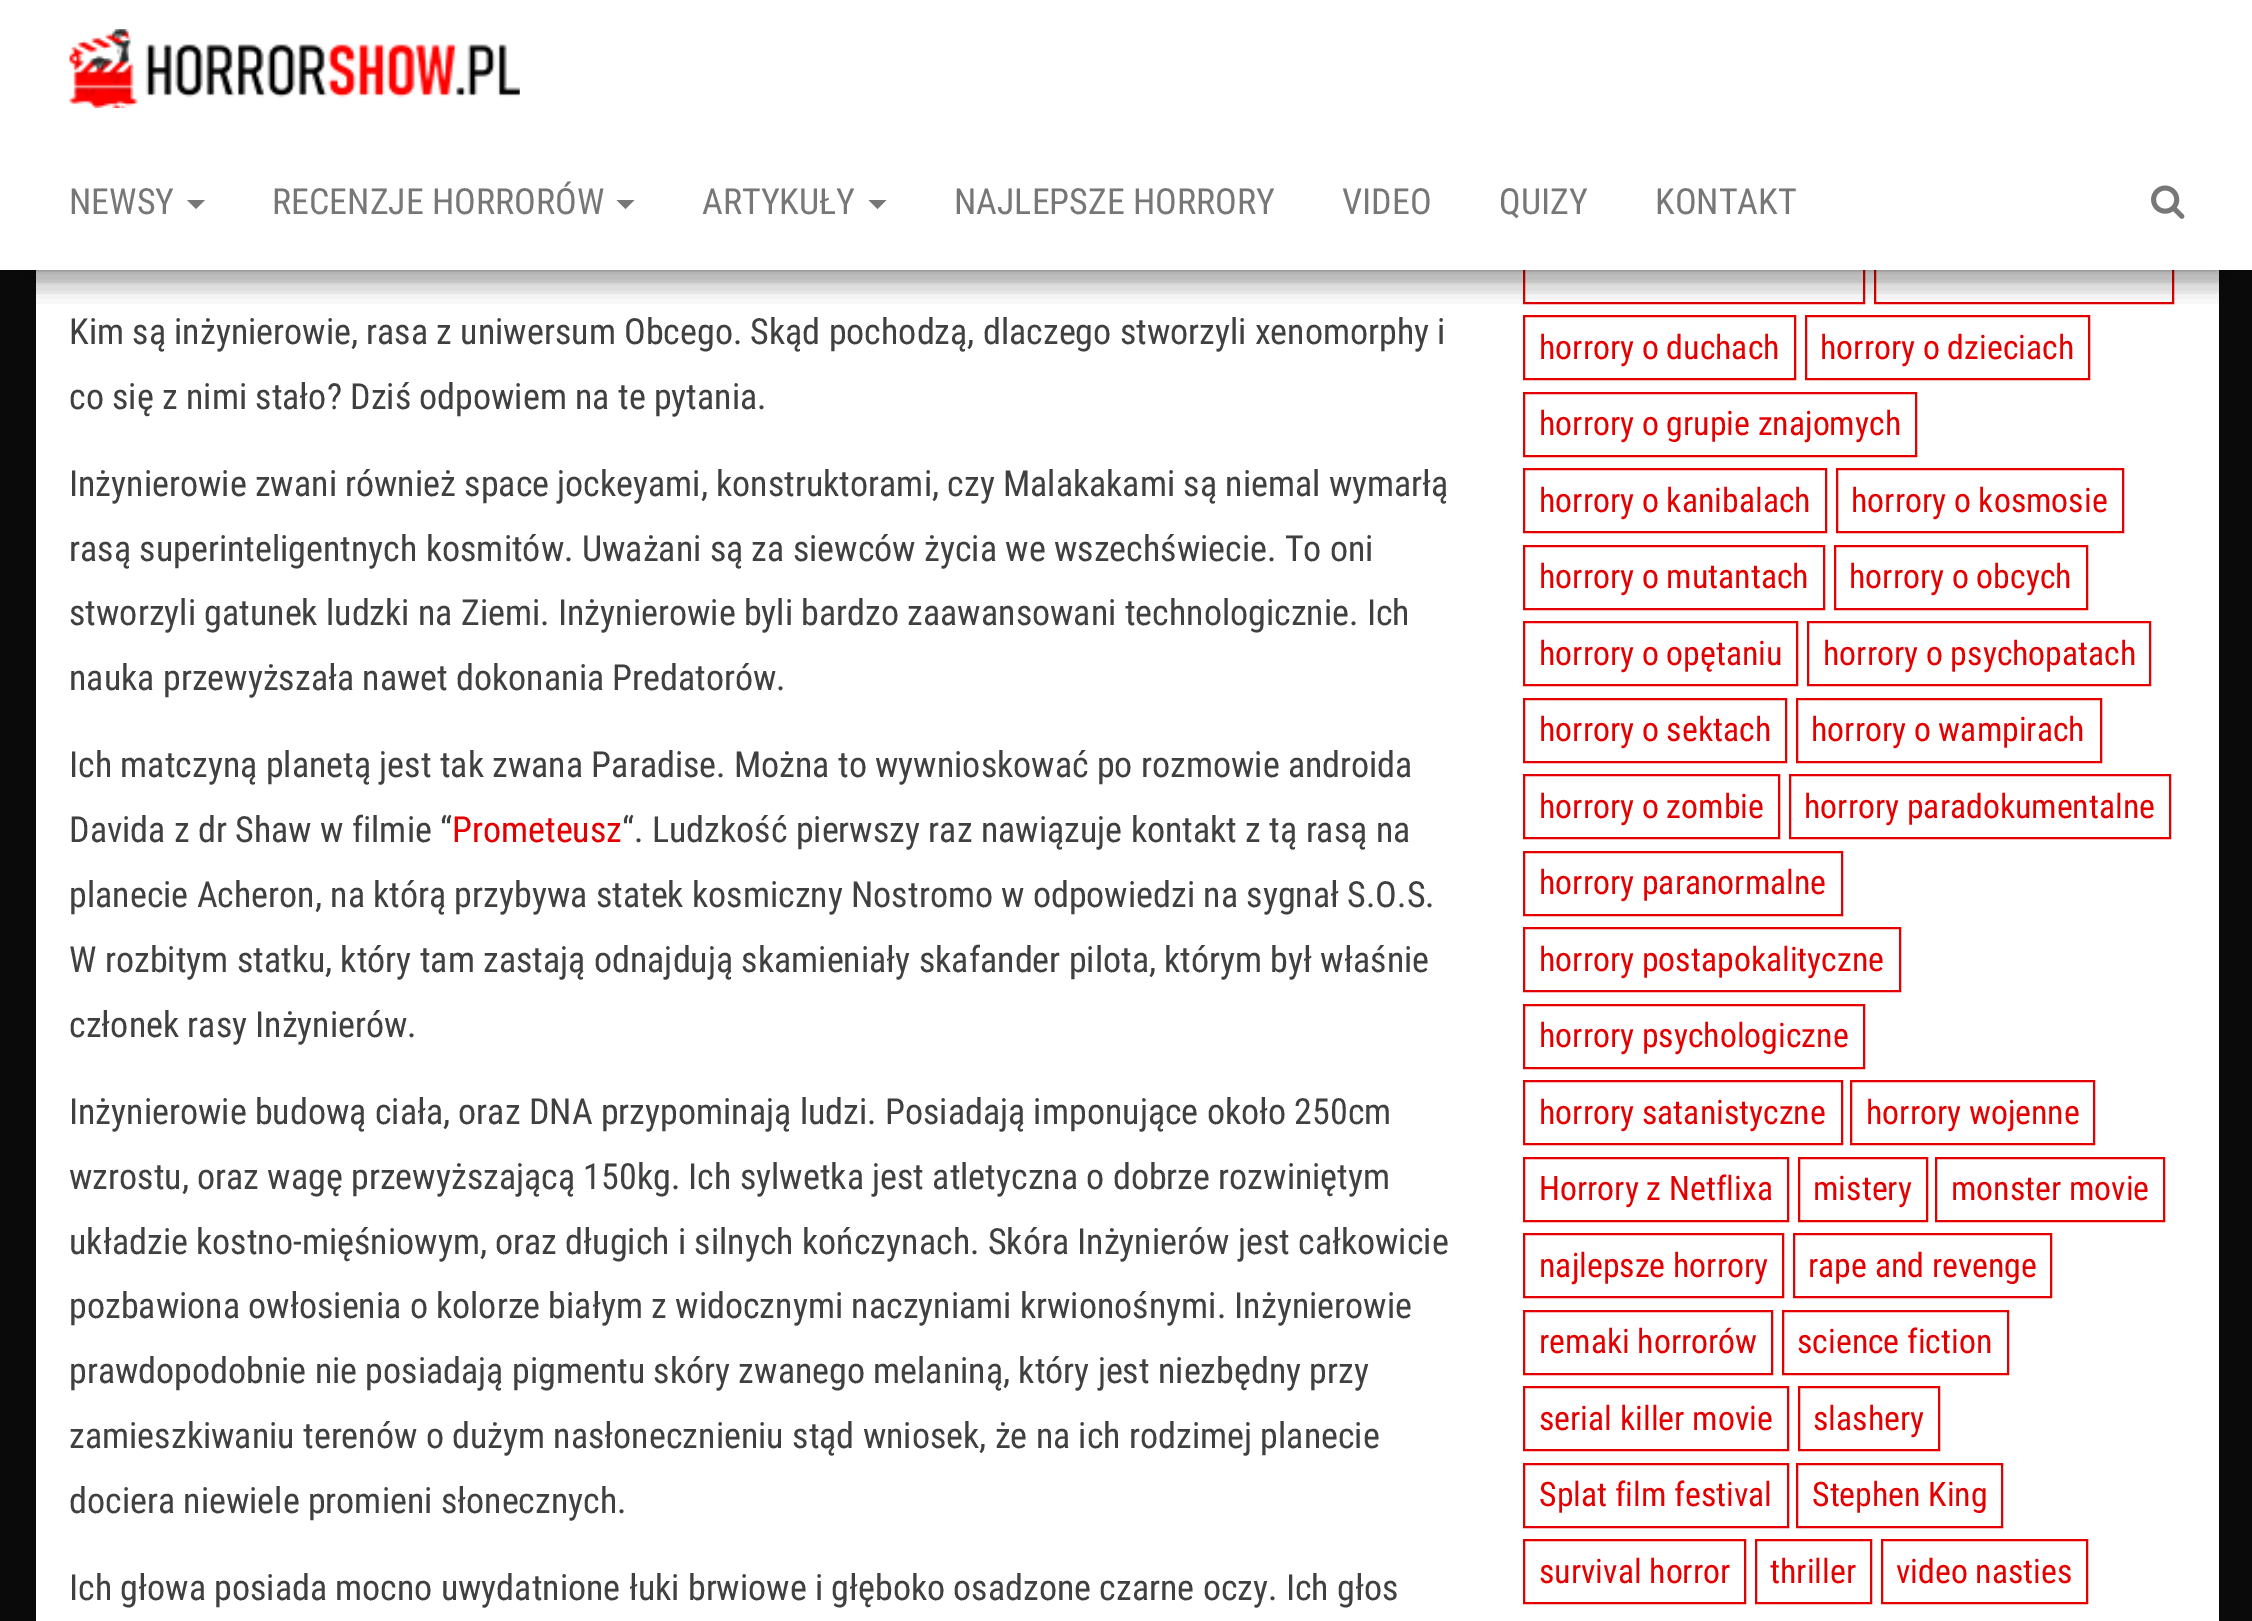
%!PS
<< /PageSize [2252 1621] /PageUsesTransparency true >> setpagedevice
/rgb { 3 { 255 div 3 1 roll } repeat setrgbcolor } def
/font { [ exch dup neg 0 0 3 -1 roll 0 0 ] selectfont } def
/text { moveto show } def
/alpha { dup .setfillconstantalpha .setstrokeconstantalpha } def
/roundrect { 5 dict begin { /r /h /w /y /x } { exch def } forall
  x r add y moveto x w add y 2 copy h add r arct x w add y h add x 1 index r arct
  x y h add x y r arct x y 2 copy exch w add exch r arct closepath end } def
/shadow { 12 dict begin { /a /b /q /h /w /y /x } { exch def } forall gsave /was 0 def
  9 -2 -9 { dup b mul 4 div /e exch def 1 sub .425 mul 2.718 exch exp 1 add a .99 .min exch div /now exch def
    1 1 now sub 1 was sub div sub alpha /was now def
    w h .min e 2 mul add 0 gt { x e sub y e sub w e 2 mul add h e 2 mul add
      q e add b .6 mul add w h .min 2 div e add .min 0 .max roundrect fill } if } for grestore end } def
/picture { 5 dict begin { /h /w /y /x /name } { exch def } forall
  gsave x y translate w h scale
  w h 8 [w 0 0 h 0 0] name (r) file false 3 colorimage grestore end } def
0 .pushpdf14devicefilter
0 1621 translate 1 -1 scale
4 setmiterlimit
10 10 10 rgb
0 0 2252 1621 rectfill
255 255 255 rgb
36 270 2183 1351 rectfill
228 0 0 rgb
2 setlinewidth
1524 240 340 63 rectstroke
1875 240 298 63 rectstroke
255 255 255 rgb
0 0 2252 270 rectfill
gsave
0 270 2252 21 rectclip
0 0 0 rgb
11 29 2230 248 0 11 0.2 shadow
grestore
228 0 0 rgb
1524 316 271 63 rectstroke
1806 316 283 63 rectstroke
gsave
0 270 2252 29 rectclip
0 0 0 rgb
0 7 2252 270 0 22.5 0.12 shadow
grestore
gsave
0 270 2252 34 rectclip
0 0 0 rgb
27 50 2198 216 0 22.5 0.42 shadow
grestore
(img_01.rgb) 69 29 451 79 picture
119 119 119 rgb
187 200 moveto 18 0 rlineto -9 9 rlineto closepath fill
616.5 200 moveto 18 0 rlineto -9 9 rlineto closepath fill
868.5 200 moveto 18 0 rlineto -9 9 rlineto closepath fill
(img_02.rgb) 2151 185 34 34 picture
228 0 0 rgb
1524 393 392 63 rectstroke
1524 469 302 63 rectstroke
1837 469 286 63 rectstroke
1524 546 300 63 rectstroke
1835 546 252 63 rectstroke
1524 622 273 63 rectstroke
1808 622 342 63 rectstroke
1524 699 262 63 rectstroke
1797 699 304 63 rectstroke
1524 775 255 63 rectstroke
1790 775 380 63 rectstroke
1524 852 318 63 rectstroke
1524 928 376 63 rectstroke
1524 1005 340 63 rectstroke
1524 1081 318 63 rectstroke
1851 1081 243 63 rectstroke
1524 1158 264 63 rectstroke
1799 1158 128 63 rectstroke
1936 1158 228 63 rectstroke
1524 1234 259 63 rectstroke
1794 1234 257 63 rectstroke
1524 1311 248 63 rectstroke
1783 1311 225 63 rectstroke
1524 1387 264 63 rectstroke
1799 1387 140 63 rectstroke
1524 1464 264 63 rectstroke
1797 1464 205 63 rectstroke
1524 1540 221 63 rectstroke
1756 1540 115 63 rectstroke
1882 1540 205 63 rectstroke
/RobotoCondensed-Regular 36 font
119 119 119 rgb
(NEWSY) 69 214 text
(RECENZJE HORRORÓW) 272 214 text
(ARTYKUŁY) 702 214 text
(NAJLEPSZE HORRORY) 954 214 text
(VIDEO) 1342 214 text
(QUIZY) 1499 214 text
(KONTAKT) 1655 214 text
64 64 64 rgb
(Kim są inżynierowie, rasa z uniwersum Obcego. Skąd pochodzą, dlaczego stworzyli xenomorphy i) 69 344 text
(co się z nimi stało? Dziś odpowiem na te pytania.) 69 409 text
(Inżynierowie zwani również space jockeyami, konstruktorami, czy Malakakami są niemal wymarłą) 69 496 text
(rasą superinteligentnych kosmitów. Uważani są za siewców życia we wszechświecie. To oni) 69 561 text
(stworzyli gatunek ludzki na Ziemi. Inżynierowie byli bardzo zaawansowani technologicznie. Ich) 69 625 text
(nauka przewyższała nawet dokonania Predatorów.) 69 690 text
(Ich matczyną planetą jest tak zwana Paradise. Można to wywnioskować po rozmowie androida) 69 777 text
(Davida z dr Shaw w filmie “) 69 842 text
228 0 0 rgb
(Prometeusz) 452 842 text
64 64 64 rgb
(“. Ludzkość pierwszy raz nawiązuje kontakt z tą rasą na) 622 842 text
(planecie Acheron, na którą przybywa statek kosmiczny Nostromo w odpowiedzi na sygnał S.O.S.) 69 907 text
(W rozbitym statku, który tam zastają odnajdują skamieniały skafander pilota, którym był właśnie) 69 972 text
(członek rasy Inżynierów.) 69 1037 text
(Inżynierowie budową ciała, oraz DNA przypominają ludzi. Posiadają imponujące około 250cm) 69 1124 text
(wzrostu, oraz wagę przewyższającą 150kg. Ich sylwetka jest atletyczna o dobrze rozwiniętym) 69 1189 text
(układzie kostno-mięśniowym, oraz długich i silnych kończynach. Skóra Inżynierów jest całkowicie) 69 1254 text
(pozbawiona owłosienia o kolorze białym z widocznymi naczyniami krwionośnymi. Inżynierowie) 69 1318 text
(prawdopodobnie nie posiadają pigmentu skóry zwanego melaniną, który jest niezbędny przy) 69 1383 text
(zamieszkiwaniu terenów o dużym nasłonecznieniu stąd wniosek, że na ich rodzimej planecie) 69 1448 text
(dociera niewiele promieni słonecznych.) 69 1513 text
(Ich głowa posiada mocno uwydatnione łuki brwiowe i głęboko osadzone czarne oczy. Ich głos) 69 1600 text
/RobotoCondensed-Regular 33.75 font
228 0 0 rgb
(horrory o duchach) 1539 359 text
(horrory o dzieciach) 1820 359 text
(horrory o grupie znajomych) 1539 435 text
(horrory o kanibalach) 1539 512 text
(horrory o kosmosie) 1851 512 text
(horrory o mutantach) 1539 588 text
(horrory o obcych) 1849 588 text
(horrory o opętaniu) 1539 665 text
(horrory o psychopatach) 1823 665 text
(horrory o sektach) 1539 741 text
(horrory o wampirach) 1811 741 text
(horrory o zombie) 1539 818 text
(horrory paradokumentalne) 1804 818 text
(horrory paranormalne) 1539 894 text
(horrory postapokalityczne) 1539 971 text
(horrory psychologiczne) 1539 1047 text
(horrory satanistyczne) 1539 1124 text
(horrory wojenne) 1866 1124 text
(Horrory z Netflixa) 1539 1200 text
(mistery) 1813 1200 text
(monster movie) 1951 1200 text
(najlepsze horrory) 1539 1277 text
(rape and revenge) 1808 1277 text
(remaki horrorów) 1539 1353 text
(science fiction) 1797 1353 text
(serial killer movie) 1539 1430 text
(slashery) 1813 1430 text
(Splat film festival) 1539 1506 text
(Stephen King) 1812 1506 text
(survival horror) 1539 1583 text
(thriller) 1770 1583 text
(video nasties) 1896 1583 text
.poppdf14devicefilter showpage
